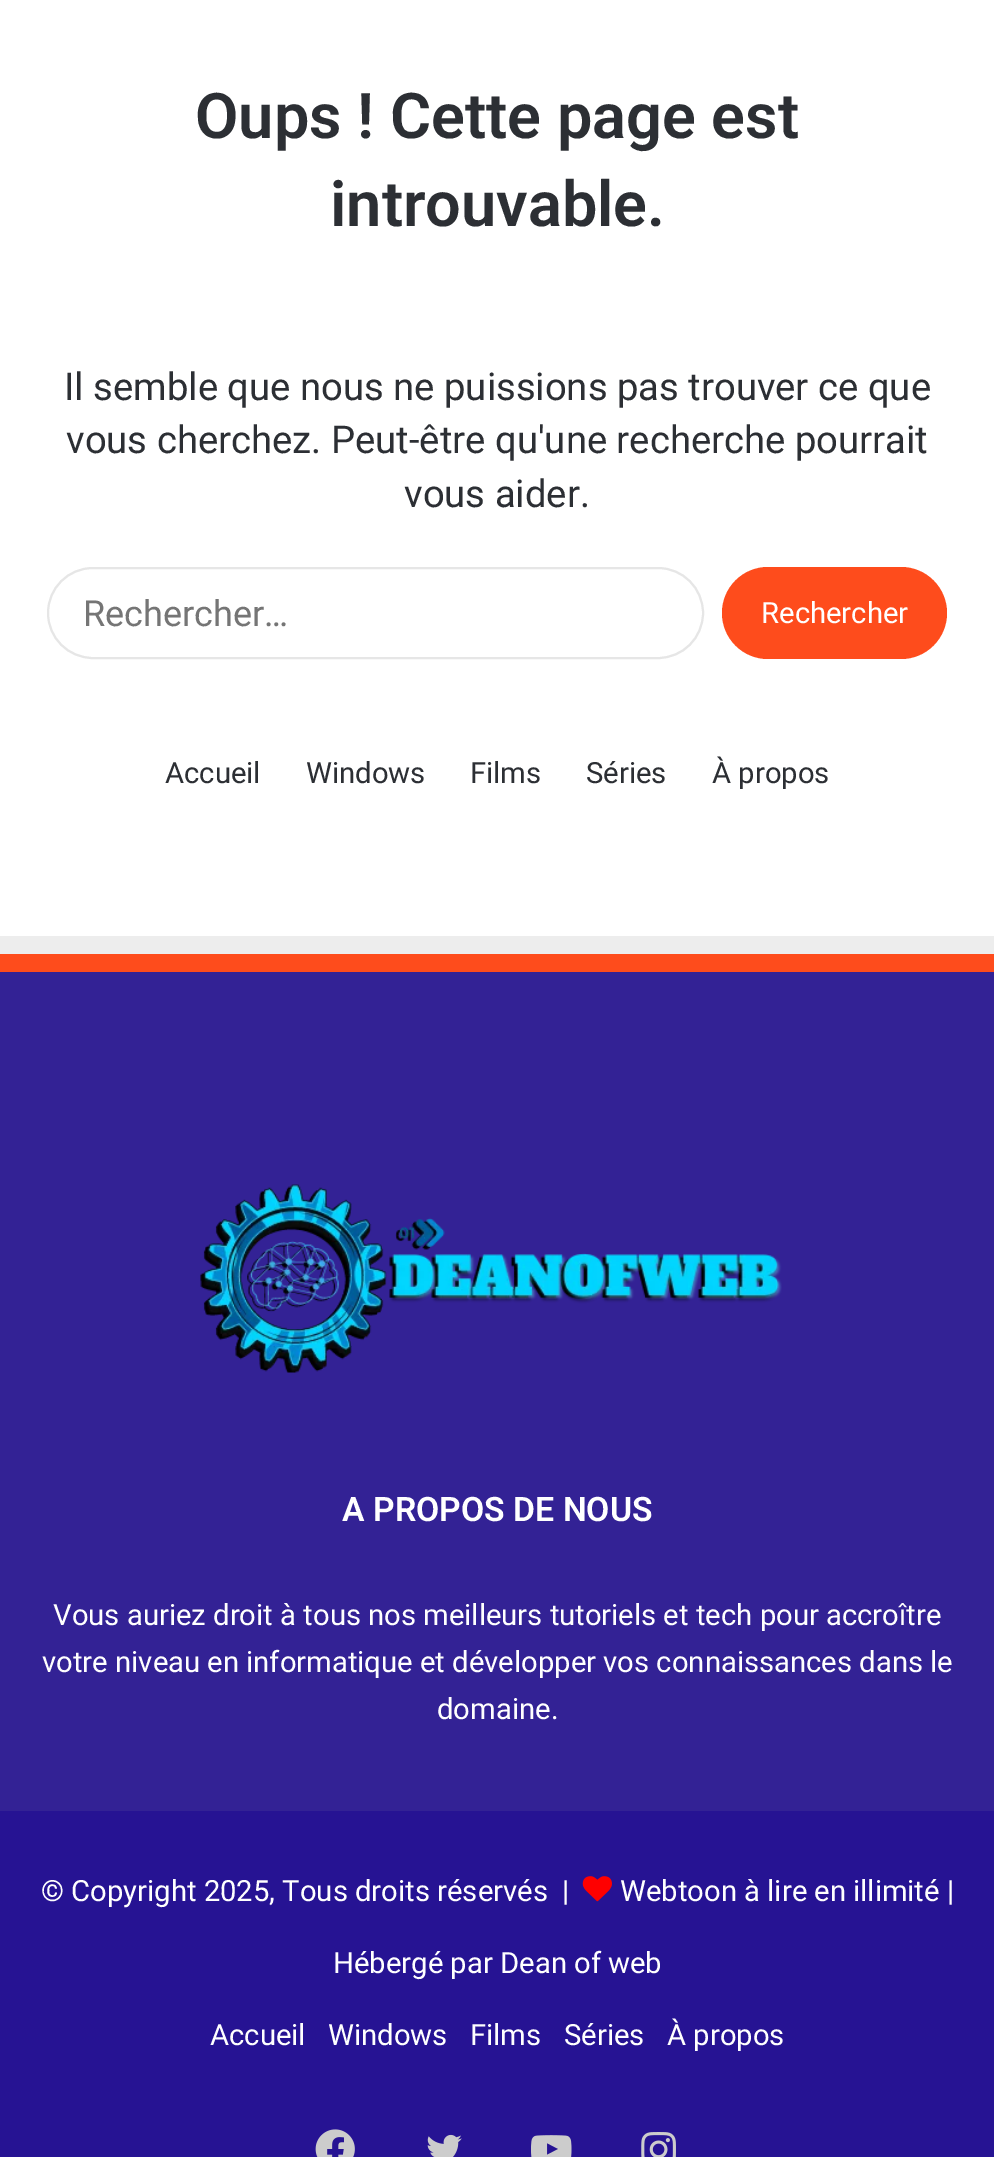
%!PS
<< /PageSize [994 2157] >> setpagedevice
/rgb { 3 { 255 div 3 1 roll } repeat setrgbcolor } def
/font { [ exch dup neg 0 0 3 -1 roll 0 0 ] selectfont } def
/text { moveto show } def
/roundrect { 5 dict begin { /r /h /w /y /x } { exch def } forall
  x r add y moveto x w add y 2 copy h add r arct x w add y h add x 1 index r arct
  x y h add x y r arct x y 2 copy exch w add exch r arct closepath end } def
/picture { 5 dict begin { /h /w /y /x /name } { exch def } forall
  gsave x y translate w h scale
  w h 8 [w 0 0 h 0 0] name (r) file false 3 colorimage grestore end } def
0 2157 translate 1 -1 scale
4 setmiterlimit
255 255 255 rgb
0 0 994 2157 rectfill
230 230 230 rgb
2 setlinewidth
48 568 655 90 45 roundrect stroke
254 76 28 rgb
722 567 225 92 46 roundrect fill
51 34 149 rgb
0 972 994 839 rectfill
237 237 237 rgb
0 936 moveto 0 18 rlineto 994 0 rlineto 0 839 rlineto 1 0 rlineto 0 -857 rlineto closepath fill
254 76 28 rgb
0 954 994 18 rectfill
(img_01.rgb) 200 1184 582 189 picture
38 19 147 rgb
0 1811 994 346 rectfill
(img_02.rgb) 582 1876 30 26 picture
(img_03.rgb) 315 2129 40 28 picture
(img_04.rgb) 427 2134 35 23 picture
(img_05.rgb) 531 2135 41 22 picture
(img_06.rgb) 641 2132 35 25 picture
/Roboto-SemiBold 63 font
44 47 52 rgb
(Oups ! Cette page est) 195 138 text
(introuvable.) 330 226 text
/Roboto-Regular 38.25 font
(Il semble que nous ne puissions pas trouver ce que) 64 400 text
(vous cherchez. Peut-être qu'une recherche pourrait) 66 453 text
(vous aider.) 404 507 text
/Roboto-Regular 36 font
117 117 117 rgb
(Rechercher…) 83 626 text
/Roboto-Regular 29.25 font
255 255 255 rgb
(Rechercher) 761 623 text
44 47 52 rgb
(Accueil) 165 783 text
(Windows) 306 783 text
(Films) 470 783 text
(Séries) 586 783 text
(À propos) 712 783 text
/Roboto-SemiBold 33.75 font
255 255 255 rgb
(A PROPOS DE NOUS) 342 1521 text
/Roboto-Regular 29.25 font
(Vous auriez droit à tous nos meilleurs tutoriels et tech pour accroître) 53 1625 text
(votre niveau en informatique et développer vos connaissances dans le) 42 1672 text
(domaine.) 437 1719 text
(© Copyright 2025, Tous droits réservés  |) 41 1901 text
(Webtoon à lire en illimité |) 620 1901 text
(Hébergé par Dean of web) 333 1973 text
(Accueil) 210 2045 text
(Windows) 328 2045 text
(Films) 470 2045 text
(Séries) 564 2045 text
(À propos) 667 2045 text
showpage
